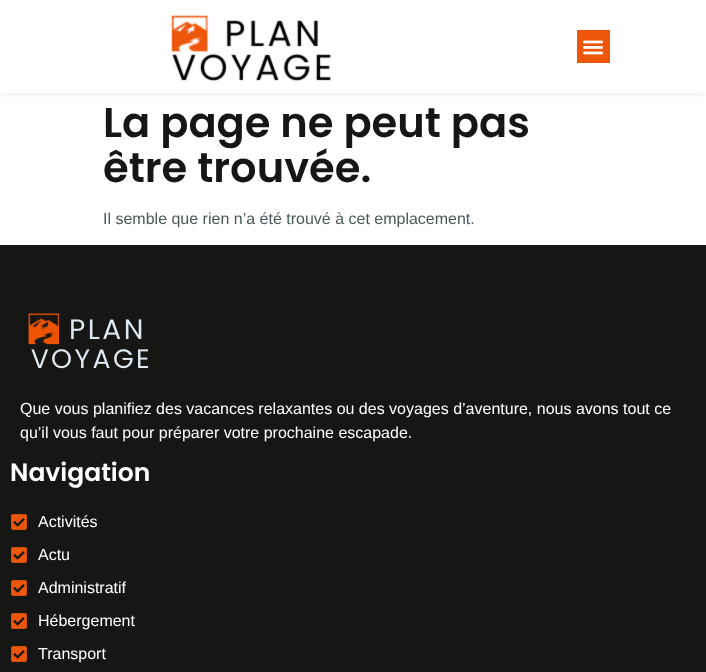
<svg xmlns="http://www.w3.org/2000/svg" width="706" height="672">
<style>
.a{font:600 41.6px Poppins;fill:#161614}
.b{font:16px Arimo;fill:#4a595a}
.c{font:16px Arimo;fill:#fff}
.d{font:600 25px Poppins;fill:#fff}
</style>
<defs>
<clipPath id="clip1"><path d="M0 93h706v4H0z"/></clipPath>
</defs>
<rect width="100%" height="100%" fill="#fff"/>
<g clip-path="url(#clip1)">
<path fill="#0000001a" filter="blur(5px)" d="M0 0h706v93H0z"/>
</g>
<image href="1.png" x="171" y="14" width="161" height="68"/>
<path fill="#ee560b" d="M577 30h33v33H577z"/>
<image href="2.png" x="582" y="40" width="22" height="15"/>
<path fill="#161614" d="M0 245h706v427H0z"/>
<image href="3.png" x="28" y="313" width="121" height="56"/>
<image href="4.png" x="11" y="514" width="16" height="16"/>
<image href="4.png" x="11" y="547" width="16" height="16"/>
<image href="4.png" x="11" y="580" width="16" height="16"/>
<image href="4.png" x="11" y="613" width="16" height="16"/>
<image href="4.png" x="11" y="646" width="16" height="16"/>
<text class="a" x="103" y="137">La page ne peut pas</text>
<text class="a" x="103" y="182">être trouvée.</text>
<text class="b" x="103" y="224">Il semble que rien n’a été trouvé à cet emplacement.</text>
<text class="c" x="20" y="414">Que vous planifiez des vacances relaxantes ou des voyages d’aventure, nous avons tout ce</text>
<text class="c" x="20" y="438">qu’il vous faut pour préparer votre prochaine escapade.</text>
<text class="d" x="10" y="481">Navigation</text>
<text class="c" x="38" y="527">Activités</text>
<text class="c" x="38" y="560">Actu</text>
<text class="c" x="38" y="593">Administratif</text>
<text class="c" x="38" y="626">Hébergement</text>
<text class="c" x="38" y="659">Transport</text>
</svg>
